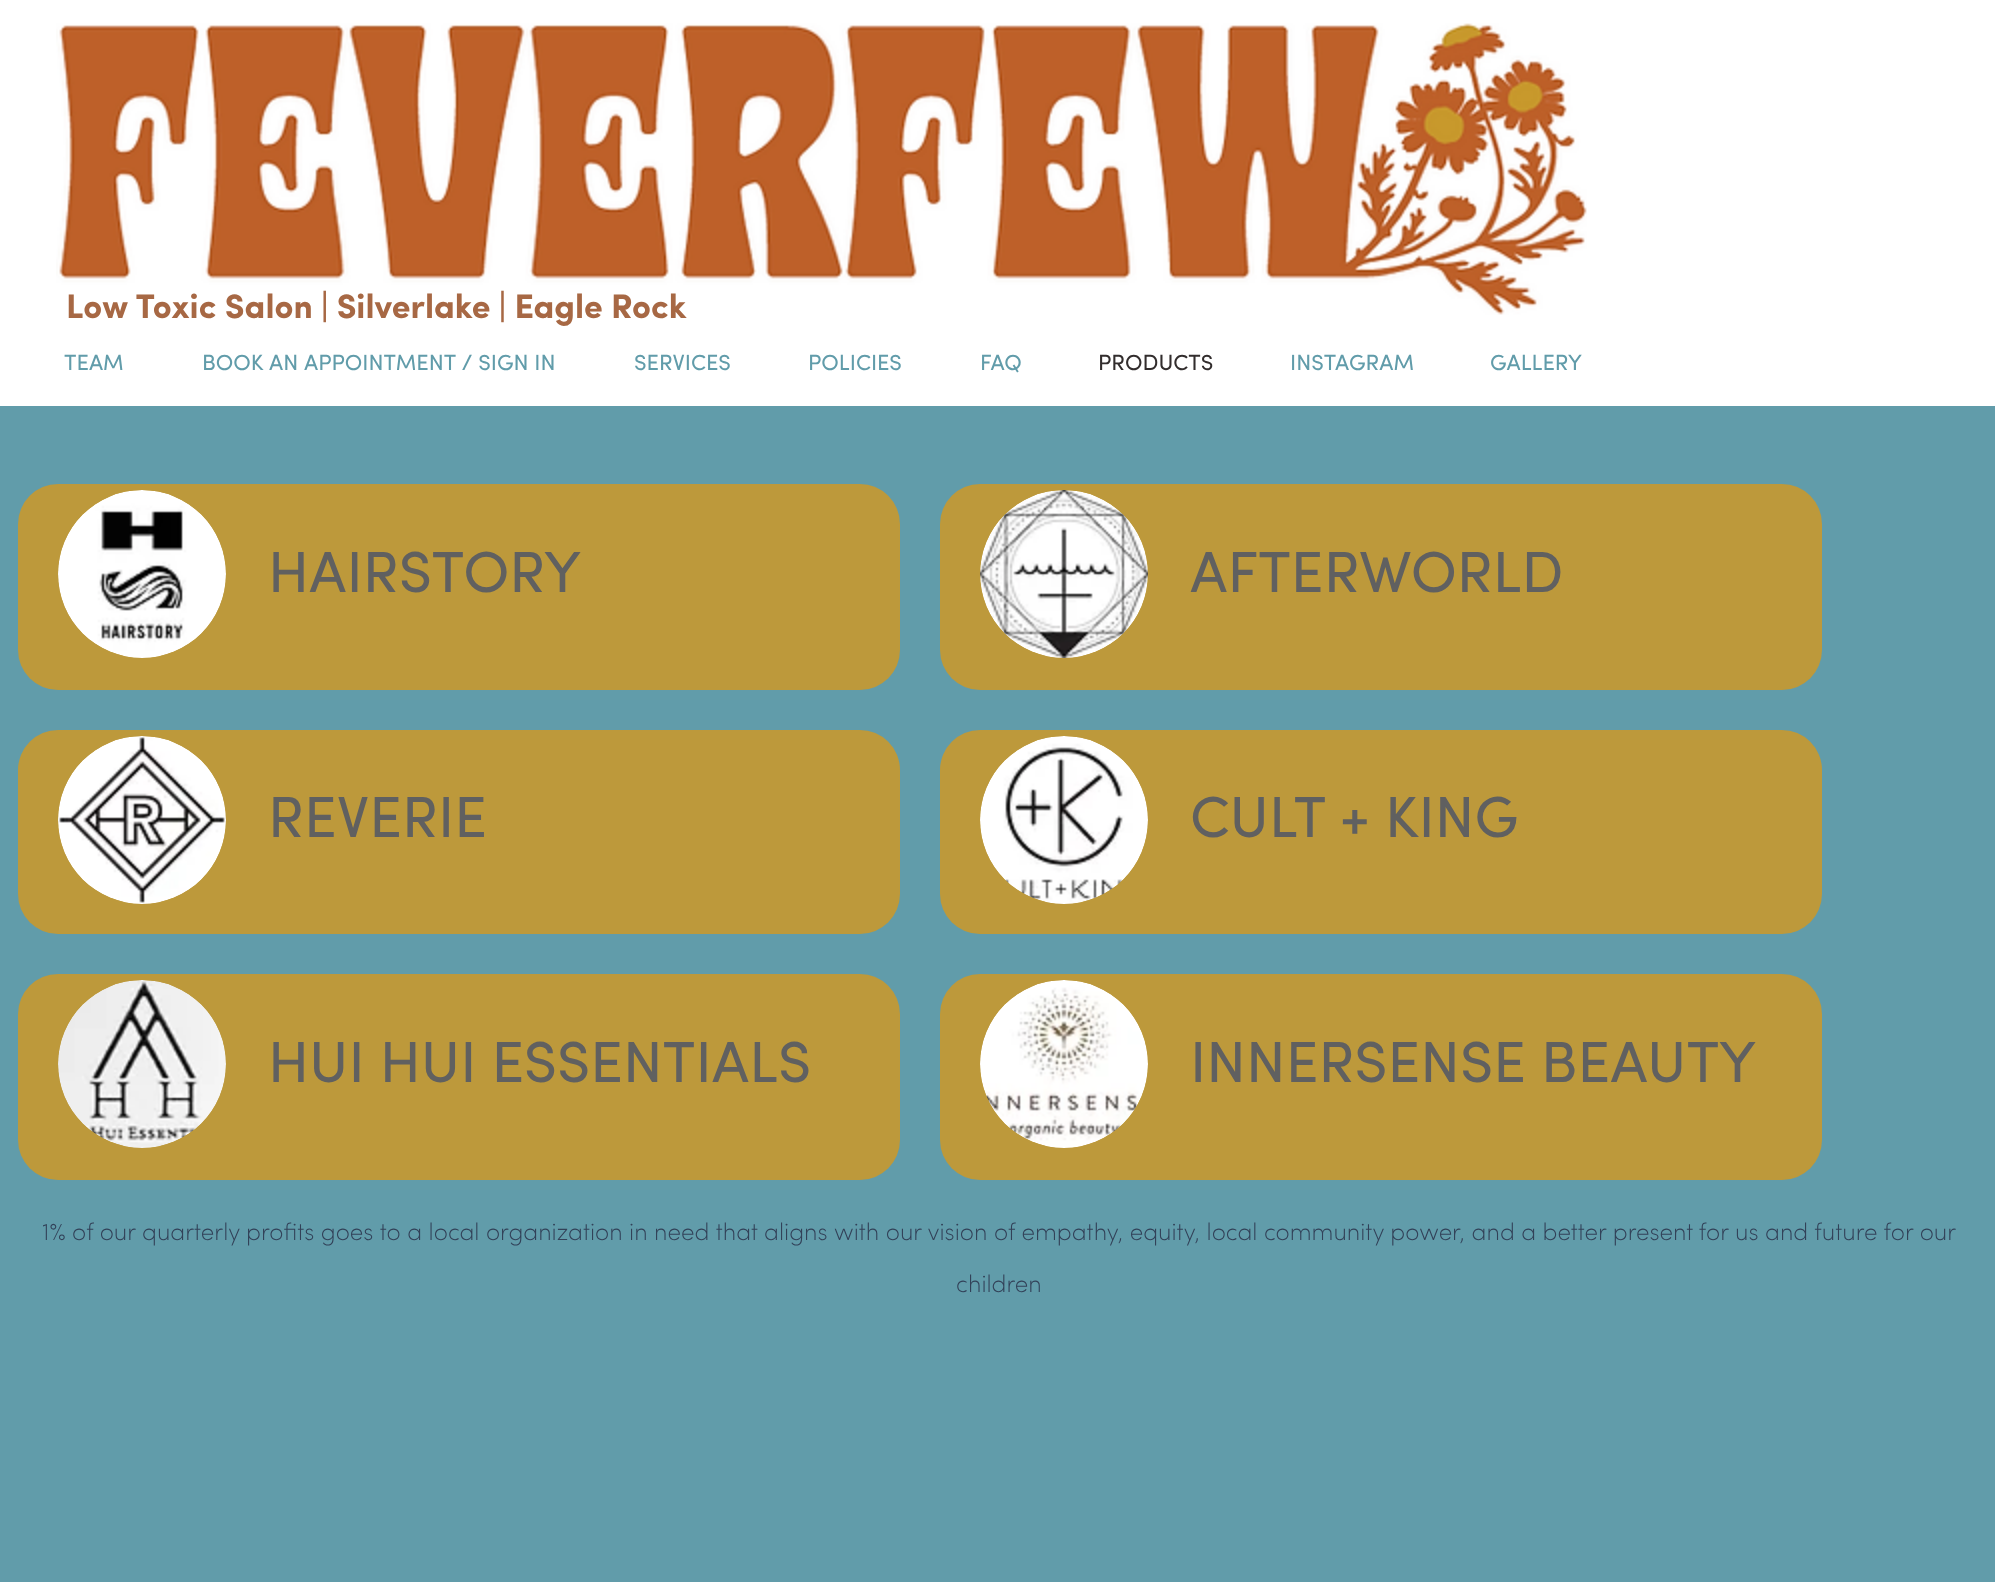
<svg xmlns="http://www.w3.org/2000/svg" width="1995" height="1582">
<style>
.a{font:bold 34px Sofia;fill:#a76844}
.b{font:22px Sofia;fill:#619caa}
.c{font:22px Sofia;fill:#322d2d}
.d{font:58px Sofia;fill:#606060}
.e{font:200 24px Sofia;fill:#324158}
</style>
<rect width="100%" height="100%" fill="#619caa"/>
<path fill="#fff" d="M0 0h1995v406H0z"/>
<image href="1.png" x="56" y="23" width="1531" height="292"/>
<rect fill="#bd993b" x="18" y="484" width="882" height="206" rx="40"/>
<image href="2.png" x="58" y="490" width="168" height="168"/>
<rect fill="#bd993b" x="18" y="730" width="882" height="204" rx="40"/>
<image href="3.png" x="58" y="736" width="168" height="168"/>
<rect fill="#bd993b" x="18" y="974" width="882" height="206" rx="40"/>
<image href="4.png" x="58" y="980" width="168" height="168"/>
<rect fill="#bd993b" x="940" y="484" width="882" height="206" rx="40"/>
<image href="5.png" x="980" y="490" width="168" height="168"/>
<rect fill="#bd993b" x="940" y="730" width="882" height="204" rx="40"/>
<image href="6.png" x="980" y="736" width="168" height="168"/>
<rect fill="#bd993b" x="940" y="974" width="882" height="206" rx="40"/>
<image href="7.png" x="980" y="980" width="168" height="168"/>
<text class="a" x="66" y="318">Low Toxic Salon | Silverlake | Eagle Rock</text>
<text class="b" x="64" y="370">TEAM</text>
<text class="b" x="202" y="370">BOOK AN APPOINTMENT / SIGN IN</text>
<text class="b" x="634" y="370">SERVICES</text>
<text class="b" x="808" y="370">POLICIES</text>
<text class="b" x="980" y="370">FAQ</text>
<text class="c" x="1098" y="370">PRODUCTS</text>
<text class="b" x="1290" y="370">INSTAGRAM</text>
<text class="b" x="1490" y="370">GALLERY</text>
<text class="d" x="268" y="592">HAIRSTORY</text>
<text class="d" x="268" y="837">REVERIE</text>
<text class="d" x="268" y="1082">HUI HUI ESSENTIALS</text>
<text class="d" x="1190" y="592">AFTERWORLD</text>
<text class="d" x="1190" y="837">CULT + KING</text>
<text class="d" x="1190" y="1082">INNERSENSE BEAUTY</text>
<text class="e" x="42" y="1240">1% of our quarterly profits goes to a local organization in need that aligns with our vision of empathy, equity, local community power, and a better present for us and future for our</text>
<text class="e" x="956" y="1292">children</text>
</svg>
